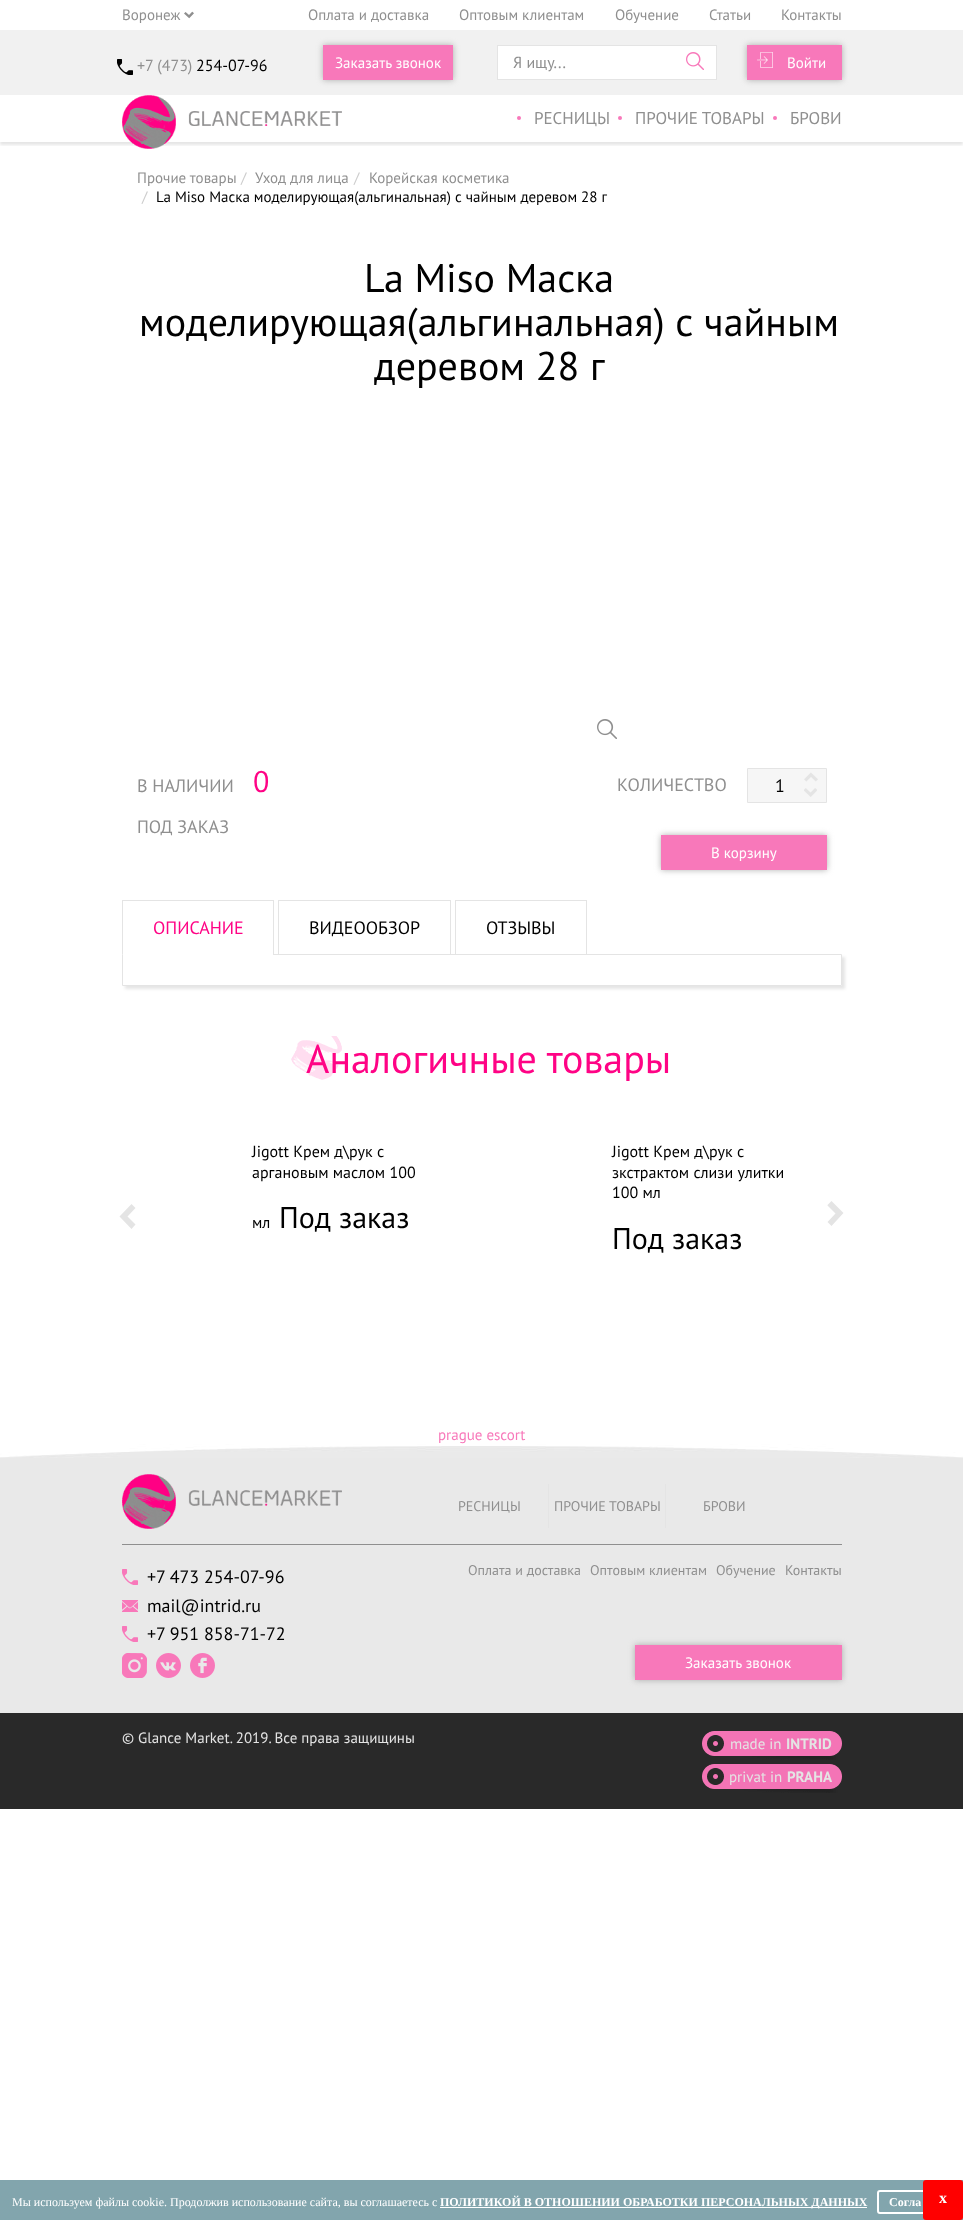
<svg xmlns="http://www.w3.org/2000/svg" width="963" height="2220">
<style>
.a{font:15px PT Sans;fill:#8f8f8f}
.b{font:10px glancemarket;fill:#8f8f8f}
.c{font:16px PT Sans;fill:#8f8f8f}
.d{font:16px PT Sans;fill:#000}
.e{font:15px PT Sans;fill:#fff}
.f{font:17px PT Sans;fill:#8f8f8f}
.g{font:15px PT Sans;fill:#ccc}
.h{font:15px PT Sans;fill:#000}
.i{font:40px PT Sans;fill:#000}
.j{font:18px PT Sans;fill:#8f8f8f}
.k{font:30px PT Sans;fill:#ff0385}
.l{font:18px PT Sans;fill:#000}
.m{font:18px PT Sans;fill:#ff0385}
.n{font:40px PT Sans;fill:#ff0385}
.o{font:30px PT Sans;fill:#000}
.p{font:15px PT Sans;fill:#f878ba}
.q{font:14px PT Sans;fill:#8f8f8f}
.r{font:15px PT Sans;fill:#e4e4e4}
.s{font:bold 15px PT Sans;fill:#e4e4e4}
.t{font:12px Liberation Serif;fill:#fff}
.u{font:bold 12px Liberation Serif;fill:#fff}
.v{font:bold 16px Liberation Serif;fill:#fff}
</style>
<defs>
<clipPath id="clip1"><path d="M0 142h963v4H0z"/></clipPath>
<clipPath id="clip2"><path d="M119 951h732v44h-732zm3 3h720v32h-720z" clip-rule="evenodd"/></clipPath>
</defs>
<rect width="100%" height="100%" fill="#fff"/>
<path fill="#f1f1f1" d="M0 30h963v65H0z"/>
<image href="1.png" x="117" y="59" width="16" height="16"/>
<path fill="#8f8f8fb3" filter="blur(3px)" d="M323 45h130v35H323z"/>
<path fill="#f878ba" d="M323 45h130v35H323z"/>
<path fill="#fff" d="M498 46h218v33H498z"/>
<path fill="#e4e4e4" d="M497 45h220v1H497z"/>
<path fill="#e4e4e4" d="M716 45h1v35H716z"/>
<path fill="#e4e4e4" d="M497 79h220v1H497z"/>
<image href="2.png" x="686" y="52" width="18" height="18"/>
<path fill="#e4e4e4" d="M497 45h1v35H497z"/>
<path fill="#8f8f8fb3" filter="blur(3px)" d="M747 45h95v35H747z"/>
<path fill="#f878ba" d="M747 45h95v35H747z"/>
<image href="3.png" x="757" y="52" width="16" height="16"/>
<g clip-path="url(#clip1)">
<path fill="#0000001a" filter="blur(1.5px)" d="M0 98h963v47H0z"/>
</g>
<image href="4.png" x="122" y="95" width="220" height="54"/>
<circle fill="#f878ba" cx="519" cy="118" r="2"/>
<circle fill="#f878ba" cx="620" cy="118" r="2"/>
<circle fill="#f878ba" cx="775" cy="118" r="2"/>
<image href="5.png" x="597" y="719" width="20" height="20"/>
<path fill="#f6f6f6" stroke="#e4e4e4" d="M747.5 768.5h79v34H747.5z"/>
<image href="6.png" x="804" y="772" width="14" height="10"/>
<image href="7.png" x="804" y="788" width="13" height="9"/>
<path fill="#8f8f8fb3" filter="blur(3px)" d="M661 835h166v35H661z"/>
<path fill="#f878ba" d="M661 835h166v35H661z"/>
<path fill="#e4e4e4" d="M122 900h152v1H122z"/>
<g clip-path="url(#clip2)">
<path fill="#0000001a" filter="blur(1.5px)" d="M125 957h720v32H125z"/>
</g>
<path fill="#e4e4e4" d="M273 900h1v54H273z"/>
<path fill="#e4e4e4" d="M122 900h1v54H122z"/>
<path fill="none" stroke="#e4e4e4" d="M122.5 954.5h719v31H122.5z"/>
<path fill="#fff" d="M123 954h150v1H123z"/>
<path fill="#e4e4e4" d="M278 900h173v1H278z"/>
<path fill="#e4e4e4" d="M450 900h1v54H450z"/>
<path fill="#e4e4e4" d="M278 900h1v54H278z"/>
<path fill="#e4e4e4" d="M455 900h132v1H455z"/>
<path fill="#e4e4e4" d="M586 900h1v54H586z"/>
<path fill="#e4e4e4" d="M455 900h1v54H455z"/>
<image href="8.png" x="291" y="1036" width="51" height="44"/>
<path fill="#e4e4e4" d="M135.5 1224.5l-8-8l8-8.5l-4-4l-12 12.5l12 12.5z"/>
<path fill="#e4e4e4" d="M827.5 1205.5l8 8l-8 8.5l4 4l12-13l-12-12l-4 4z"/>
<path fill="#e9e9e9" d="M0 1458h963v255H0z"/>
<image href="9.png" x="0" y="1444" width="963" height="14"/>
<image href="10.png" x="122" y="1474" width="220" height="55"/>
<path fill="#e4e4e4" d="M548 1484h1v44H548z"/>
<path fill="#e4e4e4" d="M665 1484h1v44H665z"/>
<path fill="#8f8f8f" d="M122 1544h720v1H122z"/>
<image href="11.png" x="122" y="1569" width="16" height="16"/>
<image href="12.png" x="122" y="1600" width="16" height="12"/>
<image href="11.png" x="122" y="1626" width="16" height="16"/>
<image href="13.png" x="122" y="1653" width="25" height="25"/>
<image href="14.png" x="156" y="1653" width="25" height="25"/>
<image href="15.png" x="190" y="1653" width="25" height="25"/>
<path fill="#8f8f8fb3" filter="blur(3px)" d="M635 1645h207v35H635z"/>
<path fill="#f878ba" d="M635 1645h207v35H635z"/>
<path fill="#292929" d="M0 1713h963v96H0z"/>
<image href="16.png" x="702" y="1731" width="140" height="29"/>
<image href="16.png" x="702" y="1764" width="140" height="29"/>
<path fill="#82a5ad" d="M0 2180h963v40H0z"/>
<path fill="#fff" d="M440 2207h427v1H440z"/>
<rect fill="none" stroke="#fff" stroke-width="2" x="878" y="2191" width="72" height="22" rx="2"/>
<rect fill="#f00" x="923" y="2180" width="40" height="40" rx="3"/>
<text class="a" x="122" y="20">Воронеж</text>
<text class="b" x="184" y="20">u</text>
<text class="a" x="308" y="20">Оплата и доставка</text>
<text class="a" x="459" y="20">Оптовым клиентам</text>
<text class="a" x="615" y="20">Обучение</text>
<text class="a" x="709" y="20">Статьи</text>
<text class="a" x="781" y="20">Контакты</text>
<text class="c" x="137" y="71">+7 (473)</text>
<text class="d" x="196" y="71">254-07-96</text>
<text class="e" x="335" y="68">Заказать звонок</text>
<text class="c" x="513" y="68">Я ищу...</text>
<text class="e" x="787" y="68">Войти</text>
<text class="f" x="534" y="124">РЕСНИЦЫ</text>
<text class="f" x="635" y="124">ПРОЧИЕ ТОВАРЫ</text>
<text class="f" x="790" y="124">БРОВИ</text>
<text class="a" x="137" y="183">Прочие товары</text>
<text class="g" x="241" y="183">/</text>
<text class="a" x="255" y="183">Уход для лица</text>
<text class="g" x="354" y="183">/</text>
<text class="a" x="369" y="183">Корейская косметика</text>
<text class="g" x="142" y="202">/</text>
<text class="h" x="156" y="202">La Miso Маска моделирующая(альгинальная) с чайным деревом 28 г</text>
<text class="i" x="364" y="292">La Miso Маска</text>
<text class="i" x="139" y="336">моделирующая(альгинальная) с чайным</text>
<text class="i" x="374" y="380">деревом 28 г</text>
<text class="j" x="137" y="792">В НАЛИЧИИ</text>
<text class="k" x="253" y="792">0</text>
<text class="j" x="617" y="791">КОЛИЧЕСТВО</text>
<text class="l" x="775" y="792">1</text>
<text class="j" x="137" y="833">ПОД ЗАКАЗ</text>
<text class="e" x="711" y="858">В корзину</text>
<text class="m" x="153" y="934">ОПИСАНИЕ</text>
<text class="l" x="309" y="934">ВИДЕООБЗОР</text>
<text class="l" x="486" y="934">ОТЗЫВЫ</text>
<text class="n" x="306" y="1073">Аналогичные товары</text>
<text class="d" x="252" y="1157">Jigott Крем д\рук с</text>
<text class="d" x="252" y="1178">аргановым маслом 100</text>
<text class="d" x="252" y="1228">мл</text>
<text class="o" x="279" y="1228">Под заказ</text>
<text class="d" x="612" y="1157">Jigott Крем д\рук с</text>
<text class="d" x="612" y="1178">зкстрактом слизи улитки</text>
<text class="d" x="612" y="1198">100 мл</text>
<text class="o" x="612" y="1249">Под заказ</text>
<text class="p" x="438" y="1440">prague escort</text>
<text class="q" x="458" y="1511">РЕСНИЦЫ</text>
<text class="q" x="554" y="1511">ПРОЧИЕ ТОВАРЫ</text>
<text class="q" x="703" y="1511">БРОВИ</text>
<text class="l" x="147" y="1583">+7 473 254-07-96</text>
<text class="l" x="147" y="1612">mail@intrid.ru</text>
<text class="l" x="147" y="1640">+7 951 858-71-72</text>
<text class="q" x="468" y="1575">Оплата и доставка</text>
<text class="q" x="590" y="1575">Оптовым клиентам</text>
<text class="q" x="716" y="1575">Обучение</text>
<text class="q" x="785" y="1575">Контакты</text>
<text class="e" x="685" y="1668">Заказать звонок</text>
<text class="r" x="122" y="1743">© Glance Market. 2019. Все права защищины</text>
<text class="r" x="730" y="1749">made in</text>
<text class="s" x="786" y="1749">INTRID</text>
<text class="r" x="729" y="1782">privat in</text>
<text class="s" x="787" y="1782">PRAHA</text>
<text class="t" x="12" y="2206">Мы используем файлы cookie. Продолжив использование сайта, вы соглашаетесь с</text>
<text class="u" x="440" y="2206">ПОЛИТИКОЙ В ОТНОШЕНИИ ОБРАБОТКИ ПЕРСОНАЛЬНЫХ ДАННЫХ</text>
<text class="u" x="889" y="2206">Согла</text>
<text class="v" x="939" y="2203">x</text>
</svg>
